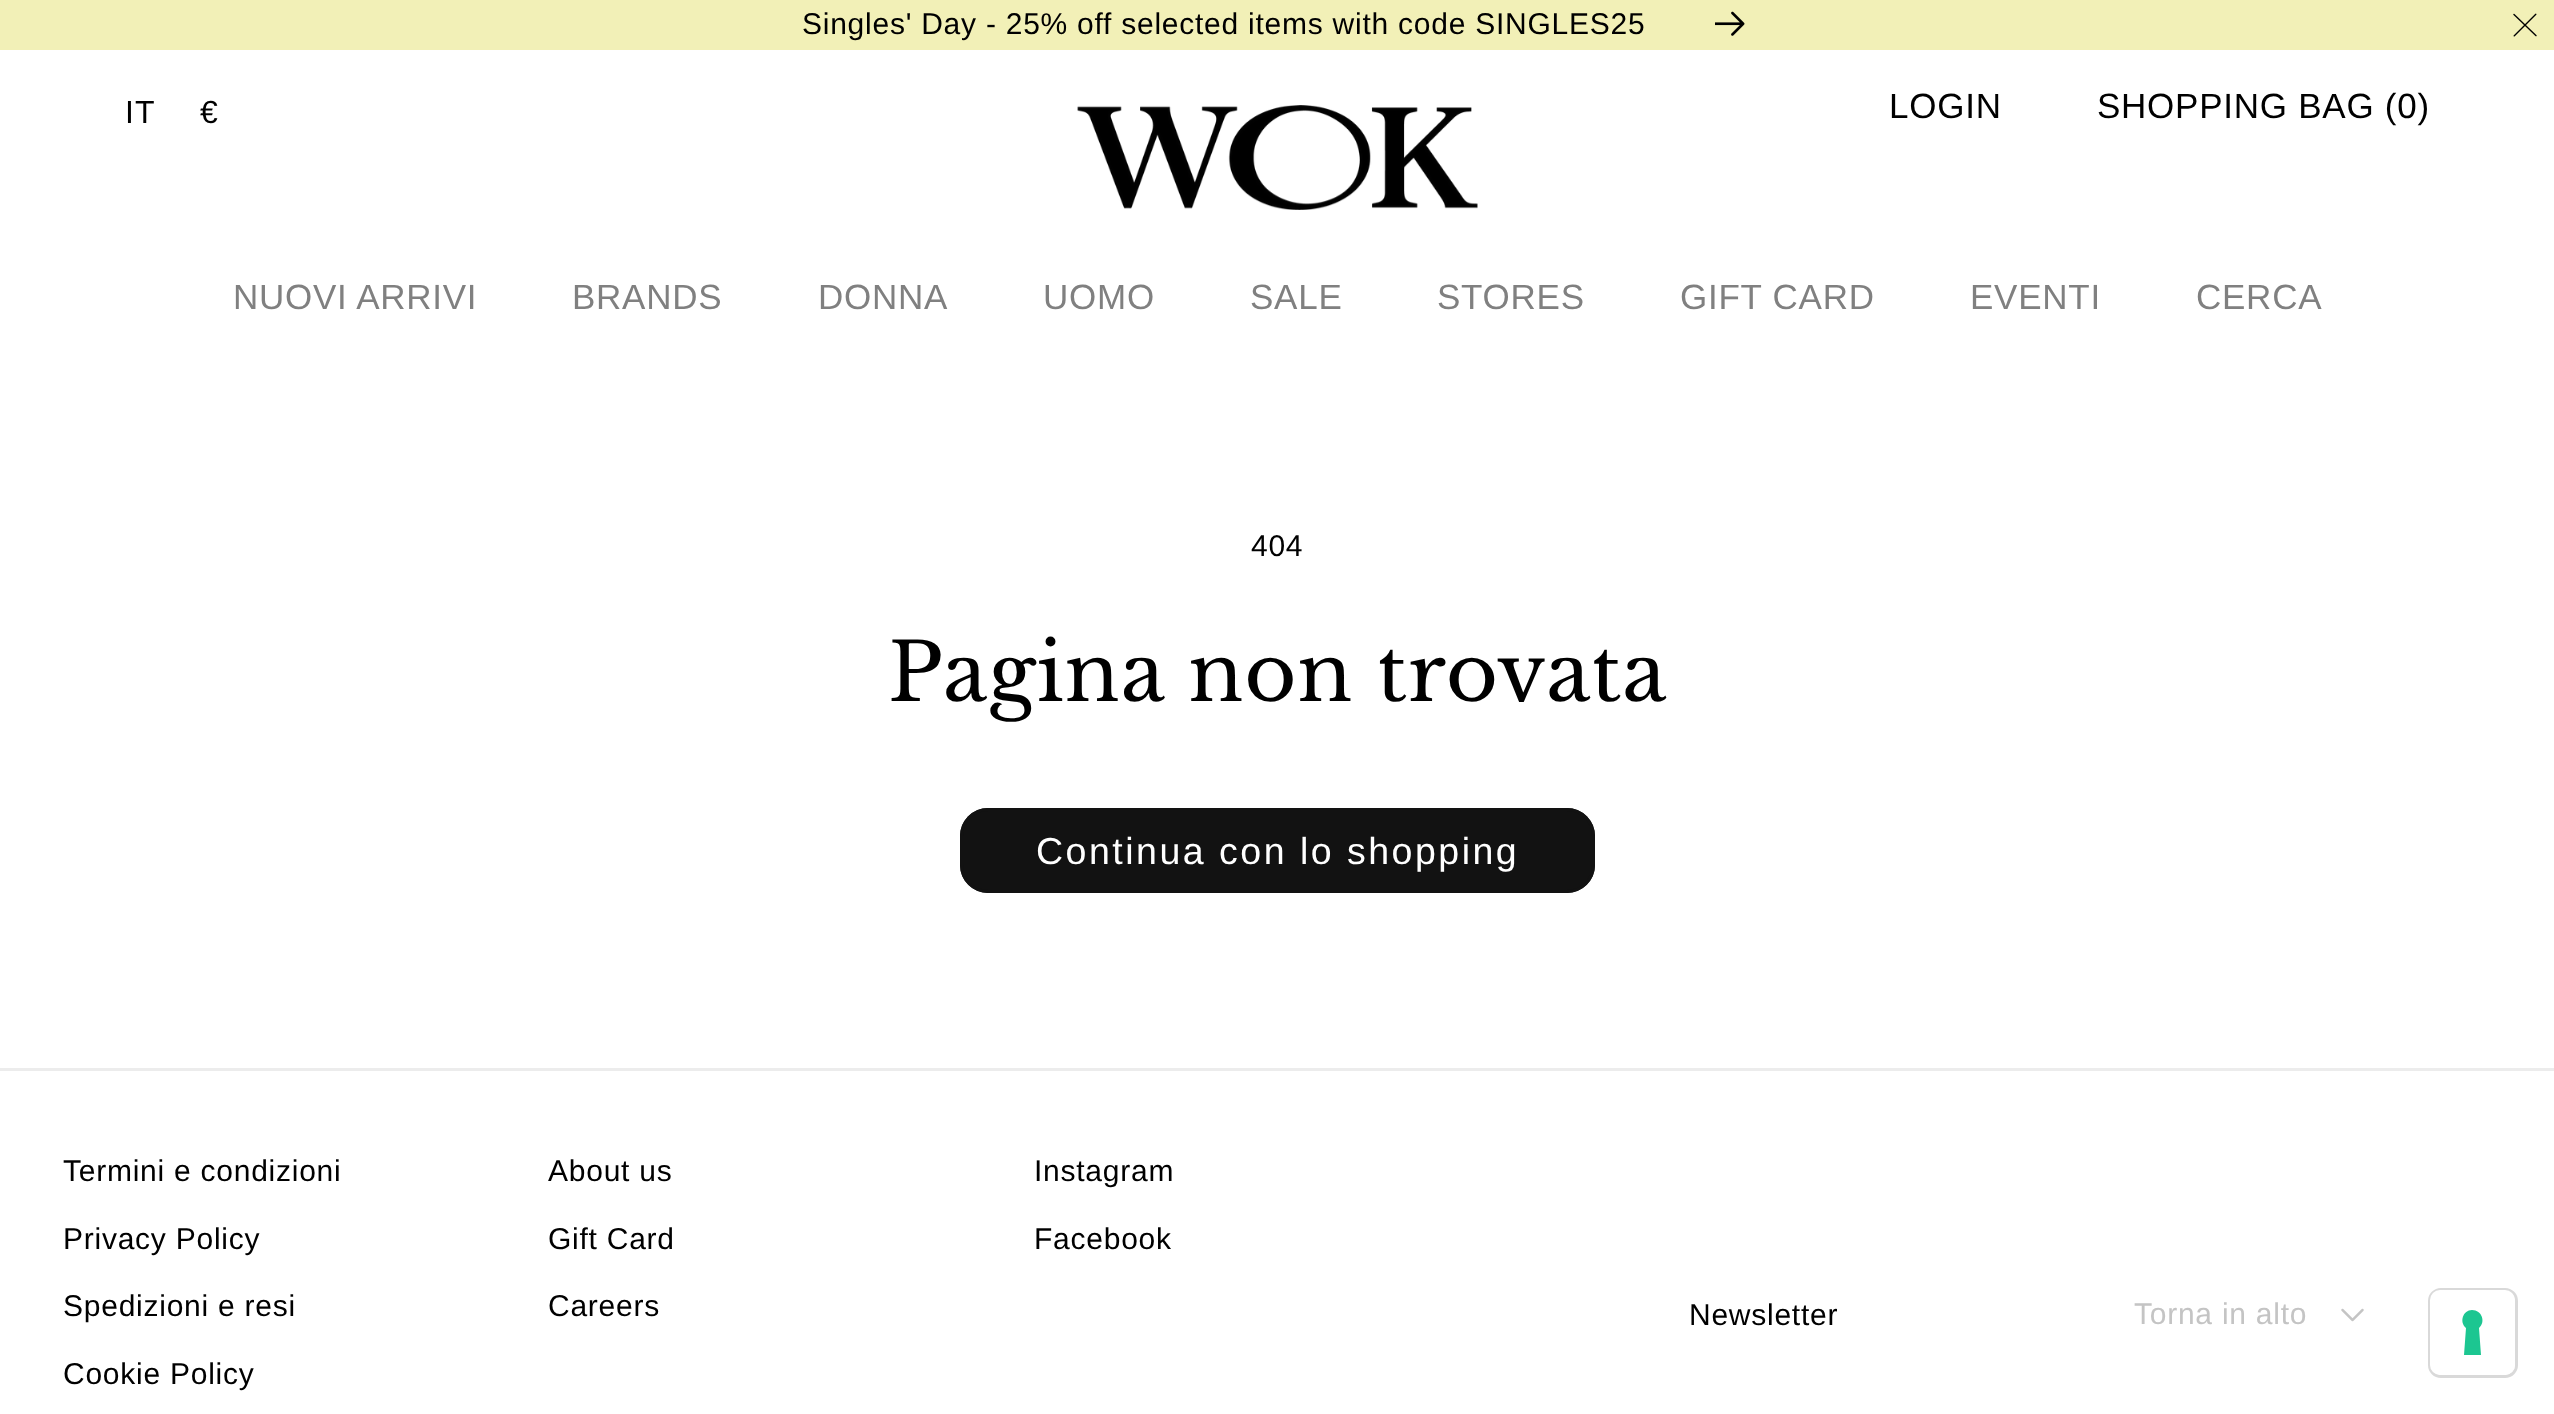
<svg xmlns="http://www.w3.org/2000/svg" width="2554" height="1414">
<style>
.a{font:30px Liberation Sans;letter-spacing:0.75px;fill:#000}
.b{font:32px Liberation Sans;letter-spacing:1px;fill:#000}
.c{font:35px Liberation Sans;letter-spacing:0.75px;fill:#000}
.d{font:35px Liberation Sans;letter-spacing:0.75px;fill:#808080}
.e{font:80px Libre Baskerville;letter-spacing:0.75px;fill:#000}
.f{font:37.5px Liberation Sans;letter-spacing:2.5px;fill:#fff}
.g{font:30px Liberation Sans;letter-spacing:0.75px;fill:#c4c4c4}
</style>
<rect width="100%" height="100%" fill="#fff"/>
<path fill="#f2f0b7" d="M0 0h2554v50H0z"/>
<image href="1.png" x="1715" y="11" width="30" height="25"/>
<image href="2.png" x="2513" y="13" width="24" height="24"/>
<image href="3.png" x="1077" y="105" width="401" height="105"/>
<rect fill="#121212" x="960" y="808" width="635" height="85" rx="28"/>
<rect fill="none" stroke="#121212" stroke-width="3" x="961.5" y="809.5" width="632" height="82" rx="26.5"/>
<path fill="#ececec" d="M0 1068h2554v3H0z"/>
<image href="4.png" x="2341" y="1308" width="23" height="14"/>
<rect fill="none" stroke="#d9d9d9" stroke-width="3" x="2429.5" y="1289.5" width="87" height="87" rx="11.5"/>
<rect fill="#fff" x="2430" y="1290" width="85" height="85" rx="10"/>
<path fill="#1cc691" fill-rule="evenodd" d="M2472 1310c10 0 14 12 7 18l2 27h-17l2-27c-7-6-3-18 6-18z"/>
<text class="a" x="802" y="34">Singles' Day - 25% off selected items with code SINGLES25</text>
<text class="b" x="125" y="123">IT</text>
<text class="b" x="200" y="123">€</text>
<text class="c" x="1889" y="118">LOGIN</text>
<text class="c" x="2097" y="118">SHOPPING BAG (0)</text>
<text class="d" x="233" y="309">NUOVI ARRIVI</text>
<text class="d" x="572" y="309">BRANDS</text>
<text class="d" x="818" y="309">DONNA</text>
<text class="d" x="1043" y="309">UOMO</text>
<text class="d" x="1250" y="309">SALE</text>
<text class="d" x="1437" y="309">STORES</text>
<text class="d" x="1680" y="309">GIFT CARD</text>
<text class="d" x="1970" y="309">EVENTI</text>
<text class="d" x="2196" y="309">CERCA</text>
<text class="a" x="1251" y="556">404</text>
<text class="e" x="888" y="701">Pagina non trovata</text>
<text class="f" x="1036" y="864">Continua con lo shopping</text>
<text class="a" x="63" y="1181">Termini e condizioni</text>
<text class="a" x="63" y="1249">Privacy Policy</text>
<text class="a" x="63" y="1316">Spedizioni e resi</text>
<text class="a" x="63" y="1384">Cookie Policy</text>
<text class="a" x="548" y="1181">About us</text>
<text class="a" x="548" y="1249">Gift Card</text>
<text class="a" x="548" y="1316">Careers</text>
<text class="a" x="1034" y="1181">Instagram</text>
<text class="a" x="1034" y="1249">Facebook</text>
<text class="a" x="1689" y="1325">Newsletter</text>
<text class="g" x="2134" y="1324">Torna in alto</text>
</svg>
